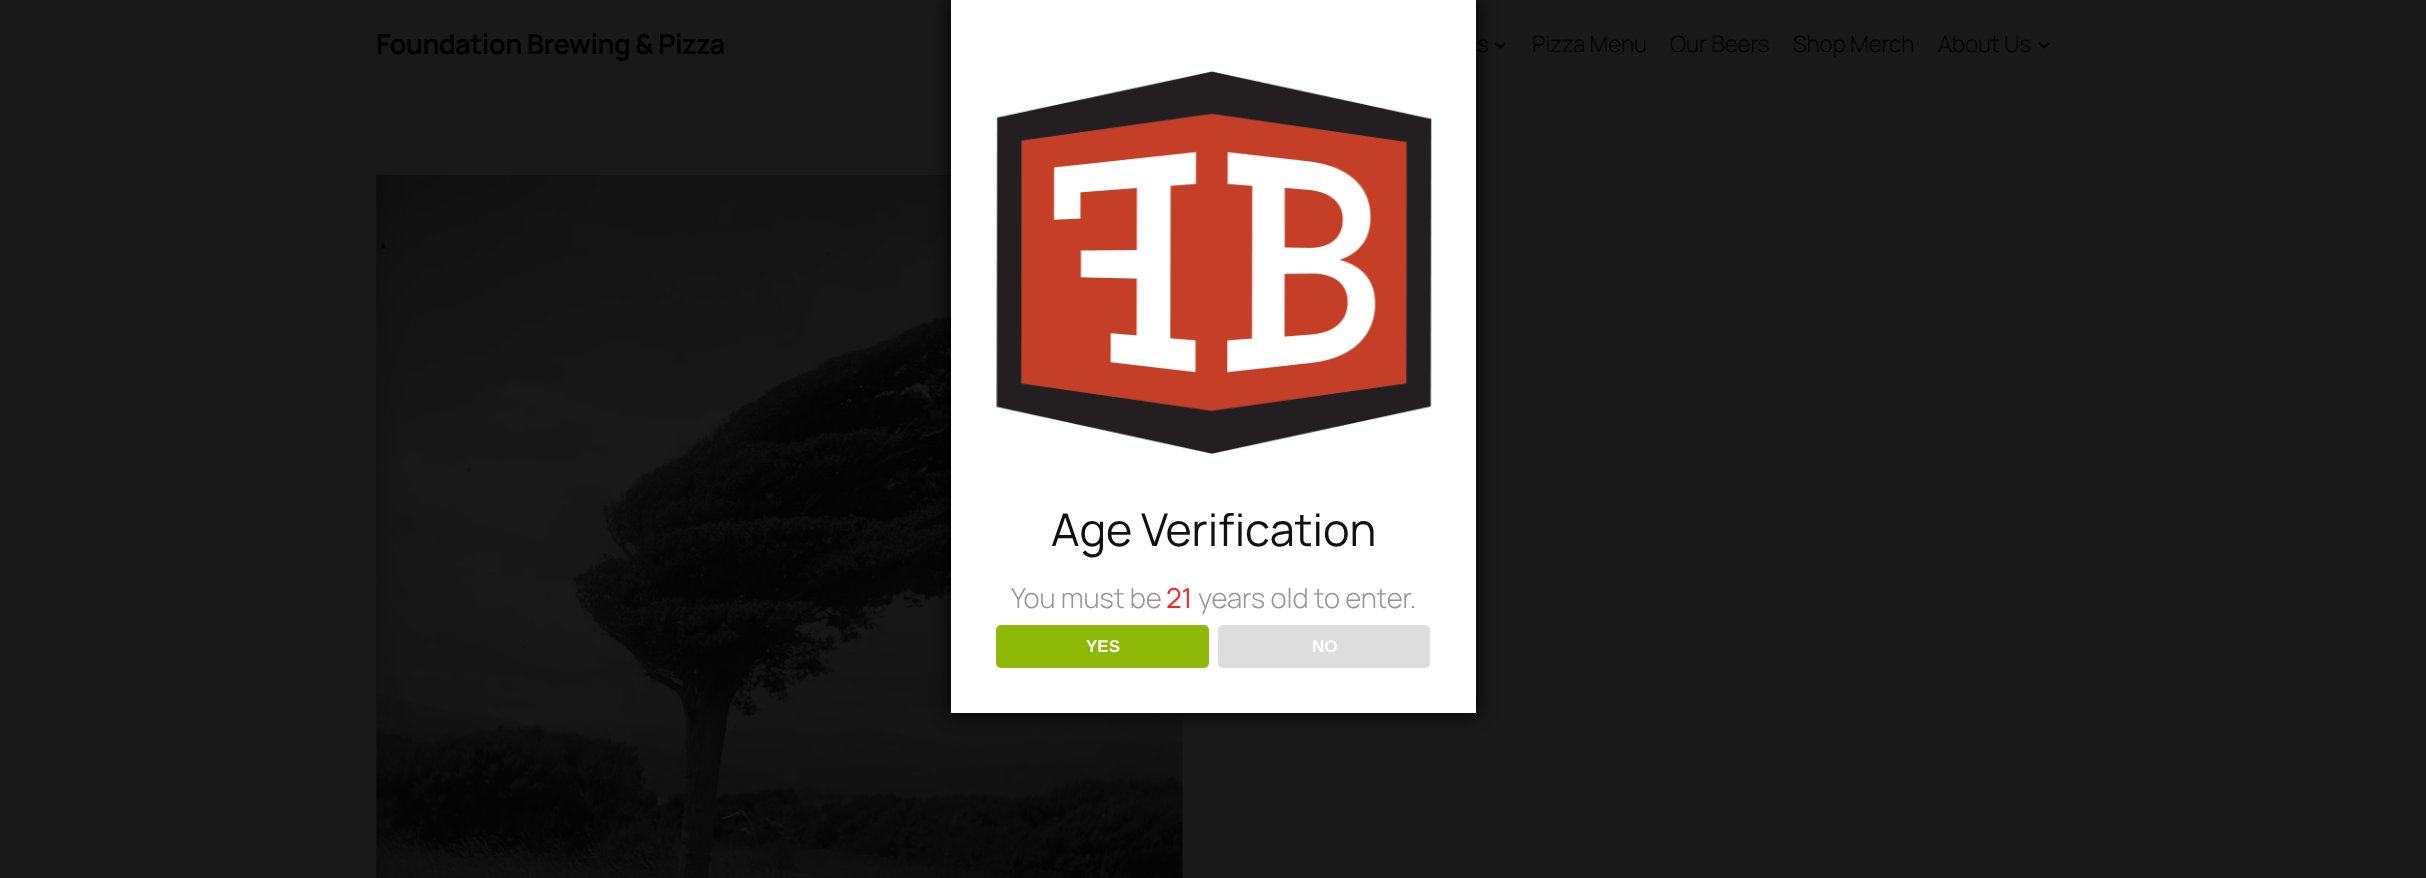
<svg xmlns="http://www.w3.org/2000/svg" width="2426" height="878">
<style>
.a{font:bold 27.5px Manrope;letter-spacing:-0.6px;fill:#020202}
.b{font:300 22.5px Manrope;letter-spacing:-0.1px;fill:#020202}
.c{font:45px Manrope;letter-spacing:-0.1px;fill:#111}
.d{font:300 27.5px Manrope;letter-spacing:-0.1px;fill:#959595}
.e{font:27.5px Manrope;letter-spacing:-0.1px;fill:#ff1f1f}
.f{font:bold 17px Liberation Sans;fill:#fff}
</style>
<rect width="100%" height="100%" fill="#191919"/>
<path fill="none" stroke="#020202" stroke-width="1.7" d="M1495.5 43l5 4.5l5-4.5"/>
<path fill="none" stroke="#020202" stroke-width="1.7" d="M2039 43l5 4.5l5.5-4.5"/>
<image href="1.png" x="376" y="175" width="807" height="703"/>
<path fill="#000" filter="blur(9.5px)" d="M951 0h525v713H951z"/>
<path fill="#fff" d="M951 0h525v713H951z"/>
<image href="2.png" x="996" y="71" width="436" height="383"/>
<rect fill="#8eb908" x="996" y="625" width="213" height="43" rx="5"/>
<rect fill="#ddd" x="1218" y="625" width="212" height="43" rx="5"/>
<text class="a" x="376" y="54">Foundation Brewing &amp; Pizza</text>
<text class="b" x="1477" y="52">s</text>
<text class="b" x="1532" y="52">Pizza Menu</text>
<text class="b" x="1670" y="52">Our Beers</text>
<text class="b" x="1793" y="52">Shop Merch</text>
<text class="b" x="1938" y="52">About Us</text>
<text class="c" x="1051" y="546">Age Verification</text>
<text class="d" x="1011" y="608">You must be</text>
<text class="e" x="1166" y="608">21</text>
<text class="d" x="1198" y="608">years old to enter.</text>
<text class="f" x="1086" y="652">YES</text>
<text class="f" x="1312" y="652">NO</text>
</svg>
